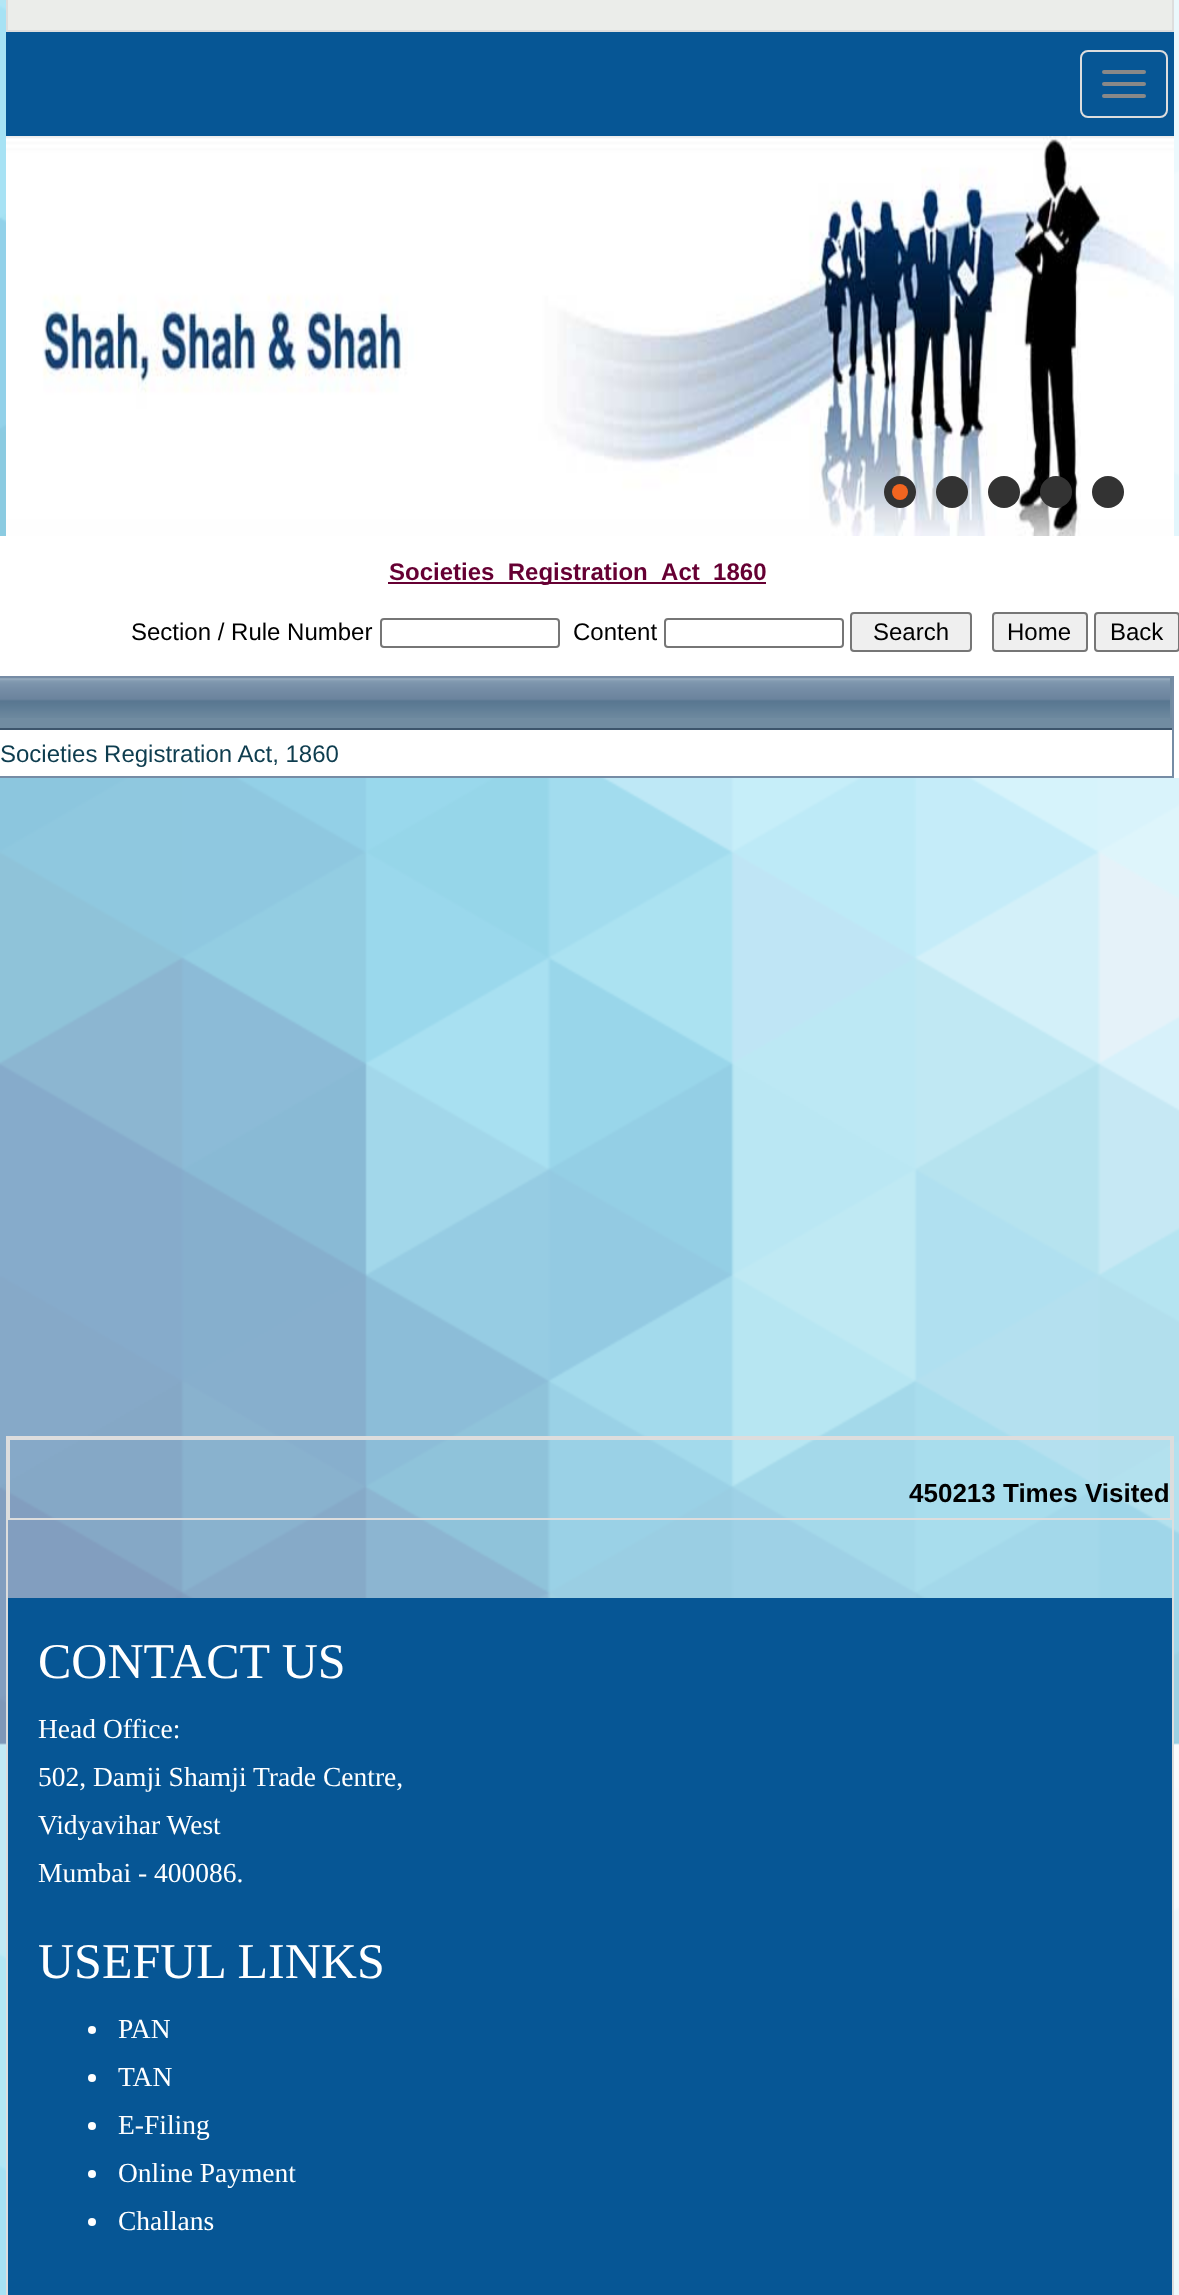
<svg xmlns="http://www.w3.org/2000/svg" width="1179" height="2295">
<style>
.a{font:bold 24px Liberation Sans;fill:#603}
.b{font:24px Liberation Sans;fill:#000}
.c{font:24px Liberation Sans;fill:#0e3d4f}
.d{font:bold 26px Liberation Sans;fill:#000}
.e{font:50px Liberation Serif;fill:#fff}
.f{font:27.5px Liberation Serif;fill:#fff}
</style>
<rect width="100%" height="100%" fill="#fff"/>
<image href="1.png" x="0" y="0" width="1179" height="2295"/>
<path fill="#ddd" d="M1172 0h2v32H1172z"/>
<path fill="#ddd" d="M6 30h1168v2H6z"/>
<path fill="#ddd" d="M6 0h2v32H6z"/>
<path fill="#ebedea" d="M8 0h1164v30H8z"/>
<path fill="#065695" d="M6 32h1168v104H6z"/>
<rect fill="none" stroke="#ddd" stroke-width="2" x="1081" y="51" width="86" height="66" rx="7"/>
<rect fill="#888" x="1102" y="70" width="44" height="4" rx="2"/>
<rect fill="#888" x="1102" y="82" width="44" height="4" rx="2"/>
<rect fill="#888" x="1102" y="94" width="44" height="4" rx="2"/>
<image href="2.png" x="6" y="136" width="1168" height="400"/>
<circle fill="#333" cx="900" cy="492" r="16"/>
<circle fill="#f26520" cx="900" cy="492" r="8"/>
<circle fill="#333" cx="952" cy="492" r="16"/>
<circle fill="#333" cx="1004" cy="492" r="16"/>
<circle fill="#333" cx="1056" cy="492" r="16"/>
<circle fill="#333" cx="1108" cy="492" r="16"/>
<path fill="#fff" d="M0 536h1179v242H0z"/>
<path fill="#603" d="M388 582h378v2H388z"/>
<rect fill="none" stroke="#767676" stroke-width="2" x="381" y="619" width="178" height="28" rx="3"/>
<rect fill="none" stroke="#767676" stroke-width="2" x="665" y="619" width="178" height="28" rx="3"/>
<rect fill="#efefef" stroke="#767676" stroke-width="2" x="851" y="613" width="120" height="38" rx="3"/>
<rect fill="#efefef" stroke="#767676" stroke-width="2" x="993" y="613" width="94" height="38" rx="3"/>
<rect fill="#efefef" stroke="#767676" stroke-width="2" x="1095" y="613" width="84" height="38" rx="3"/>
<path fill="none" stroke="#768ca5" stroke-width="2" d="M-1 677h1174v100H-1z"/>
<path fill="#718ca1" d="M0 678h1170v50H0z"/>
<image href="3.png" x="0" y="678" width="1170" height="40"/>
<path fill="#728ba1" d="M1170 678h2v52H1170z"/>
<path fill="#3d556c" d="M0 728h1172v2H0z"/>
<path fill="#ddd" d="M6 1436h1168v2H6z"/>
<path fill="#ddd" d="M1172 1436h2v859H1172z"/>
<path fill="#ddd" d="M6 1436h2v859H6z"/>
<path fill="#ddd" d="M8 1438h1164v2H8z"/>
<path fill="#ddd" d="M1170 1438h2v82H1170z"/>
<path fill="#ddd" d="M8 1518h1164v2H8z"/>
<path fill="#ddd" d="M8 1438h2v82H8z"/>
<path fill="#065695" d="M8 1598h1164v697H8z"/>
<circle fill="#fff" cx="92" cy="2030" r="4"/>
<circle fill="#fff" cx="92" cy="2078" r="4"/>
<circle fill="#fff" cx="92" cy="2126" r="4"/>
<circle fill="#fff" cx="92" cy="2174" r="4"/>
<circle fill="#fff" cx="92" cy="2222" r="4"/>
<text class="a" x="389" y="580">Societies_Registration_Act_1860</text>
<text class="b" x="131" y="640">Section / Rule Number</text>
<text class="b" x="573" y="640">Content</text>
<text class="b" x="873" y="640">Search</text>
<text class="b" x="1007" y="640">Home</text>
<text class="b" x="1110" y="640">Back</text>
<text class="c" x="0" y="762">Societies Registration Act, 1860</text>
<text class="d" x="909" y="1502">450213 Times Visited</text>
<text class="e" x="38" y="1678">CONTACT US</text>
<text class="f" x="38" y="1738">Head Office:</text>
<text class="f" x="38" y="1786">502, Damji Shamji Trade Centre,</text>
<text class="f" x="38" y="1834">Vidyavihar West</text>
<text class="f" x="38" y="1882">Mumbai - 400086.</text>
<text class="e" x="38" y="1978">USEFUL LINKS</text>
<text class="f" x="118" y="2038">PAN</text>
<text class="f" x="118" y="2086">TAN</text>
<text class="f" x="118" y="2134">E-Filing</text>
<text class="f" x="118" y="2182">Online Payment</text>
<text class="f" x="118" y="2230">Challans</text>
</svg>
